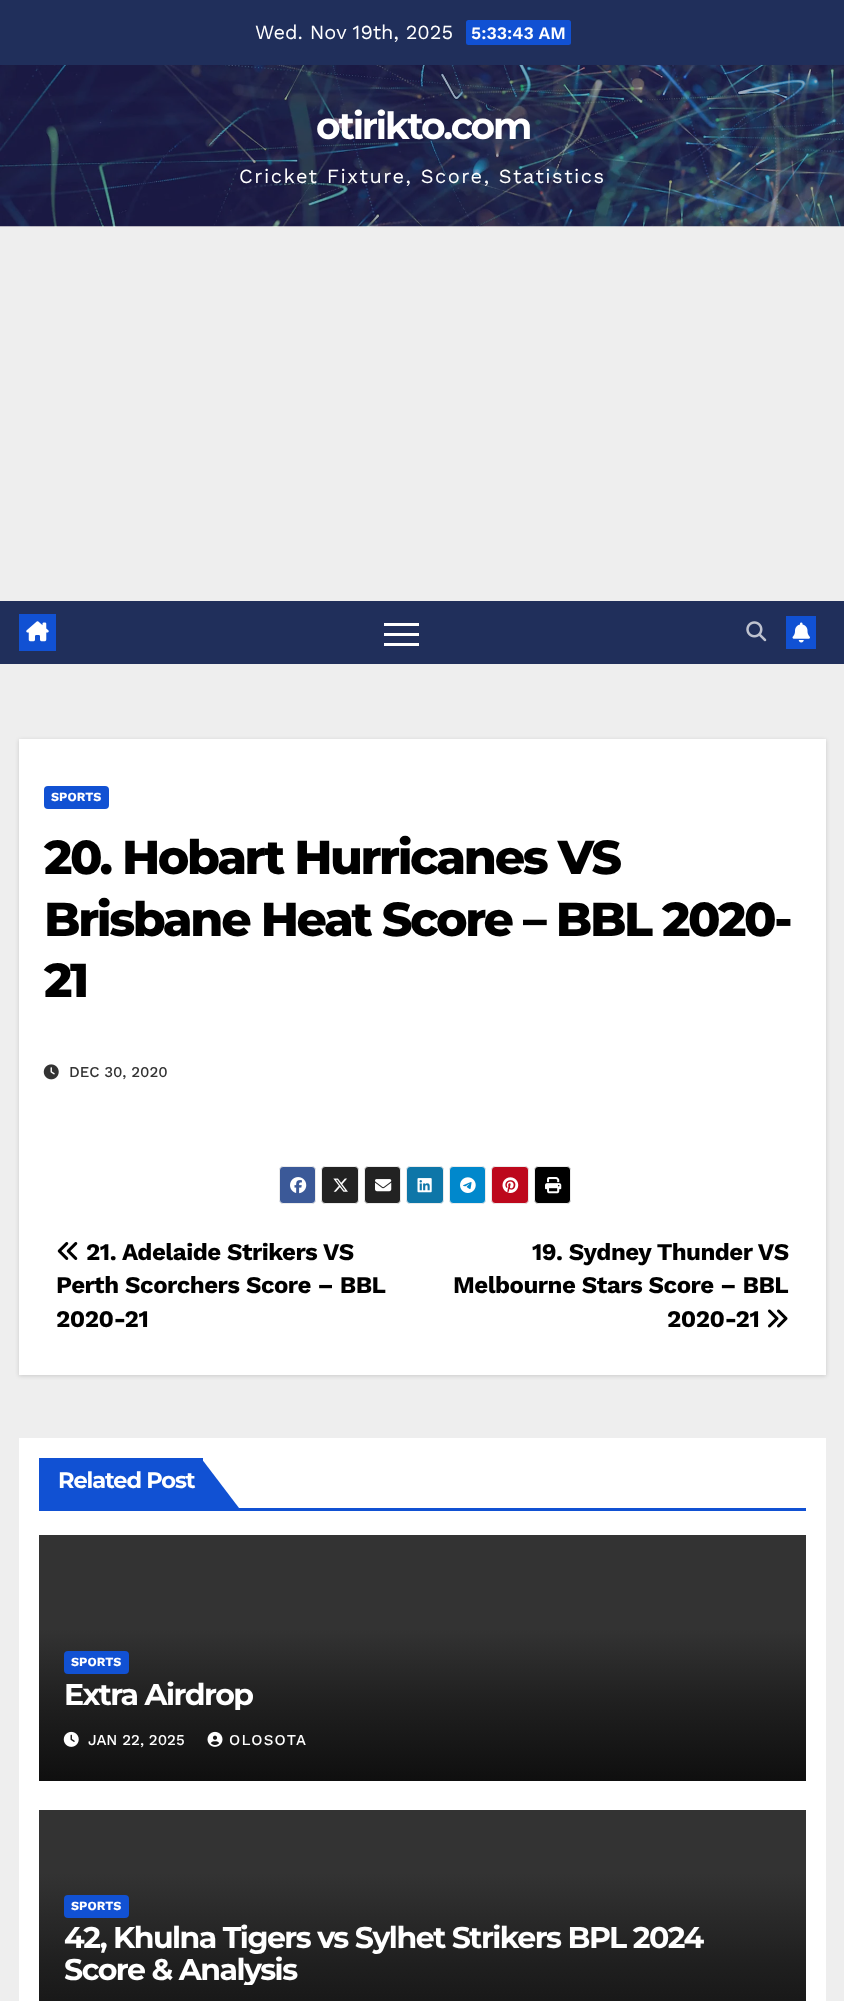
<svg xmlns="http://www.w3.org/2000/svg" width="844" height="2001">
<style>
.a{font:20px Work Sans;fill:#fff}
.b{font:600 17.5px Work Sans;fill:#fff}
.c{font:bold 37.5px Montserrat;letter-spacing:-2.1px;fill:#fff}
.d{font:20px Work Sans;letter-spacing:1.5px;fill:#fff}
.e{font:bold 12.5px Work Sans;fill:#fff}
.f{font:800 47.5px Montserrat;letter-spacing:-2.4px;fill:#000}
.g{font:500 15px Work Sans;fill:#333}
.h{font:bold 24px Work Sans;letter-spacing:-0.5px;fill:#000}
.i{font:bold 22.5px Montserrat;letter-spacing:-1.1px;fill:#fff}
.j{font:bold 30px Montserrat;letter-spacing:-1.5px;fill:#fff}
.k{font:500 15px Work Sans;fill:#fff}
.l{font:500 15px Work Sans;letter-spacing:1.25px;fill:#fff}
</style>
<defs>
<linearGradient id="g1" gradientUnits="userSpaceOnUse" x1="423" y1="1629" x2="423" y2="1781"><stop offset="0" stop-color="#333"/><stop offset="0.5" stop-color="#1f1f1f"/><stop offset="1" stop-color="#0f0f0f"/></linearGradient>
<linearGradient id="g2" gradientUnits="userSpaceOnUse" x1="423" y1="1873" x2="423" y2="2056"><stop offset="0" stop-color="#333"/><stop offset="0.5" stop-color="#1f1f1f"/><stop offset="1" stop-color="#0f0f0f"/></linearGradient>
<clipPath id="clip1"><path d="M64 1679h717v31H64z"/></clipPath>
<clipPath id="clip2"><path d="M64 1923h717v62H64z"/></clipPath>
</defs>
<rect width="100%" height="100%" fill="#eee"/>
<path fill="#202f5b" d="M0 0h844v65H0z"/>
<rect fill="#1151d3" x="466" y="20" width="105" height="25" rx="2.5"/>
<image href="1.png" x="0" y="65" width="844" height="162"/>
<path fill="#202f5b" d="M0 601h844v63H0z"/>
<path fill="#1151d3" d="M19 614h37v37H19z"/>
<image href="2.png" x="26" y="621" width="23" height="21"/>
<path fill="#fff" d="M384 623h35v3H384z"/>
<path fill="#fff" d="M384 633h35v3H384z"/>
<path fill="#fff" d="M384 643h35v3H384z"/>
<image href="3.png" x="746" y="621" width="21" height="21"/>
<path fill="#1151d3" d="M786 616h30v33H786z"/>
<image href="4.png" x="792" y="622" width="18" height="21"/>
<path fill="#00000026" filter="blur(2px)" d="M19 740h807v636H19z"/>
<path fill="#fff" d="M19 739h807v636H19z"/>
<rect fill="#1151d3" x="44" y="786" width="65" height="23" rx="4"/>
<image href="5.png" x="43" y="1064" width="16" height="16"/>
<rect fill="#3b5998" stroke="#ebebeb" x="279.5" y="1166.5" width="36" height="37" rx="3.5"/>
<image href="6.png" x="290" y="1177" width="17" height="17"/>
<rect fill="#222" stroke="#ebebeb" x="321.5" y="1166.5" width="37" height="37" rx="3.5"/>
<image href="7.png" x="333" y="1178" width="15" height="14"/>
<rect fill="#222" stroke="#ebebeb" x="364.5" y="1166.5" width="36" height="37" rx="3.5"/>
<image href="8.png" x="375" y="1179" width="17" height="13"/>
<rect fill="#0e76a8" stroke="#ebebeb" x="406.5" y="1166.5" width="37" height="37" rx="3.5"/>
<image href="9.png" x="417" y="1178" width="15" height="15"/>
<rect fill="#08c" stroke="#ebebeb" x="449.5" y="1166.5" width="36" height="37" rx="3.5"/>
<image href="10.png" x="460" y="1177" width="16" height="16"/>
<rect fill="#bd081c" stroke="#ebebeb" x="491.5" y="1166.5" width="37" height="37" rx="3.5"/>
<image href="11.png" x="502" y="1177" width="17" height="16"/>
<rect fill="#000" stroke="#ebebeb" x="534.5" y="1166.5" width="36" height="37" rx="3.5"/>
<image href="12.png" x="545" y="1177" width="17" height="17"/>
<image href="13.png" x="57" y="1242" width="21" height="18"/>
<image href="14.png" x="768" y="1309" width="20" height="19"/>
<path fill="#fff" d="M19 1438h807v563H19z"/>
<path fill="#1151d3" d="M39 1508h767v3H39z"/>
<path fill="#1151d3" d="M39 1458h164v50H39z"/>
<path fill="#1151d3" d="M201 1508v-50l38 50z"/>
<path fill="#333" d="M39 1535h767v94H39z"/>
<path fill="url(#g1)" d="M39 1629h767v152H39z"/>
<rect fill="#1151d3" x="64" y="1651" width="65" height="23" rx="4"/>
<image href="15.png" x="63" y="1731" width="16" height="16"/>
<image href="16.png" x="207" y="1731" width="16" height="16"/>
<path fill="#333" d="M39 1810h767v63H39z"/>
<path fill="url(#g2)" d="M39 1873h767v128H39z"/>
<rect fill="#1151d3" x="64" y="1895" width="65" height="23" rx="4"/>
<text class="a" x="255" y="39">Wed. Nov 19th, 2025</text>
<text class="b" x="471" y="39">5:33:43 AM</text>
<text class="c" x="316" y="139">otirikto.com</text>
<text class="d" x="239" y="183">Cricket Fixture, Score, Statistics</text>
<text class="e" x="51" y="801">SPORTS</text>
<text class="f" x="44" y="874">20. Hobart Hurricanes VS</text>
<text class="f" x="44" y="936">Brisbane Heat Score – BBL 2020-</text>
<text class="f" x="44" y="997">21</text>
<text class="g" x="69" y="1077">DEC 30, 2020</text>
<text class="h" x="86" y="1260">21. Adelaide Strikers VS</text>
<text class="h" x="56" y="1293">Perth Scorchers Score – BBL</text>
<text class="h" x="56" y="1327">2020-21</text>
<text class="h" x="532" y="1260">19. Sydney Thunder VS</text>
<text class="h" x="453" y="1293">Melbourne Stars Score – BBL</text>
<text class="h" x="667" y="1327">2020-21</text>
<text class="i" x="58" y="1488">Related Post</text>
<text class="e" x="71" y="1666">SPORTS</text>
<g clip-path="url(#clip1)">
<text class="j" x="64" y="1705">Extra Airdrop</text>
</g>
<text class="k" x="88" y="1745">JAN 22, 2025</text>
<text class="l" x="229" y="1745">OLOSOTA</text>
<text class="e" x="71" y="1910">SPORTS</text>
<text class="j" x="64" y="1948">42, Khulna Tigers vs Sylhet Strikers BPL 2024</text>
<g clip-path="url(#clip2)">
<text class="j" x="64" y="1980">Score &amp; Analysis</text>
</g>
</svg>
